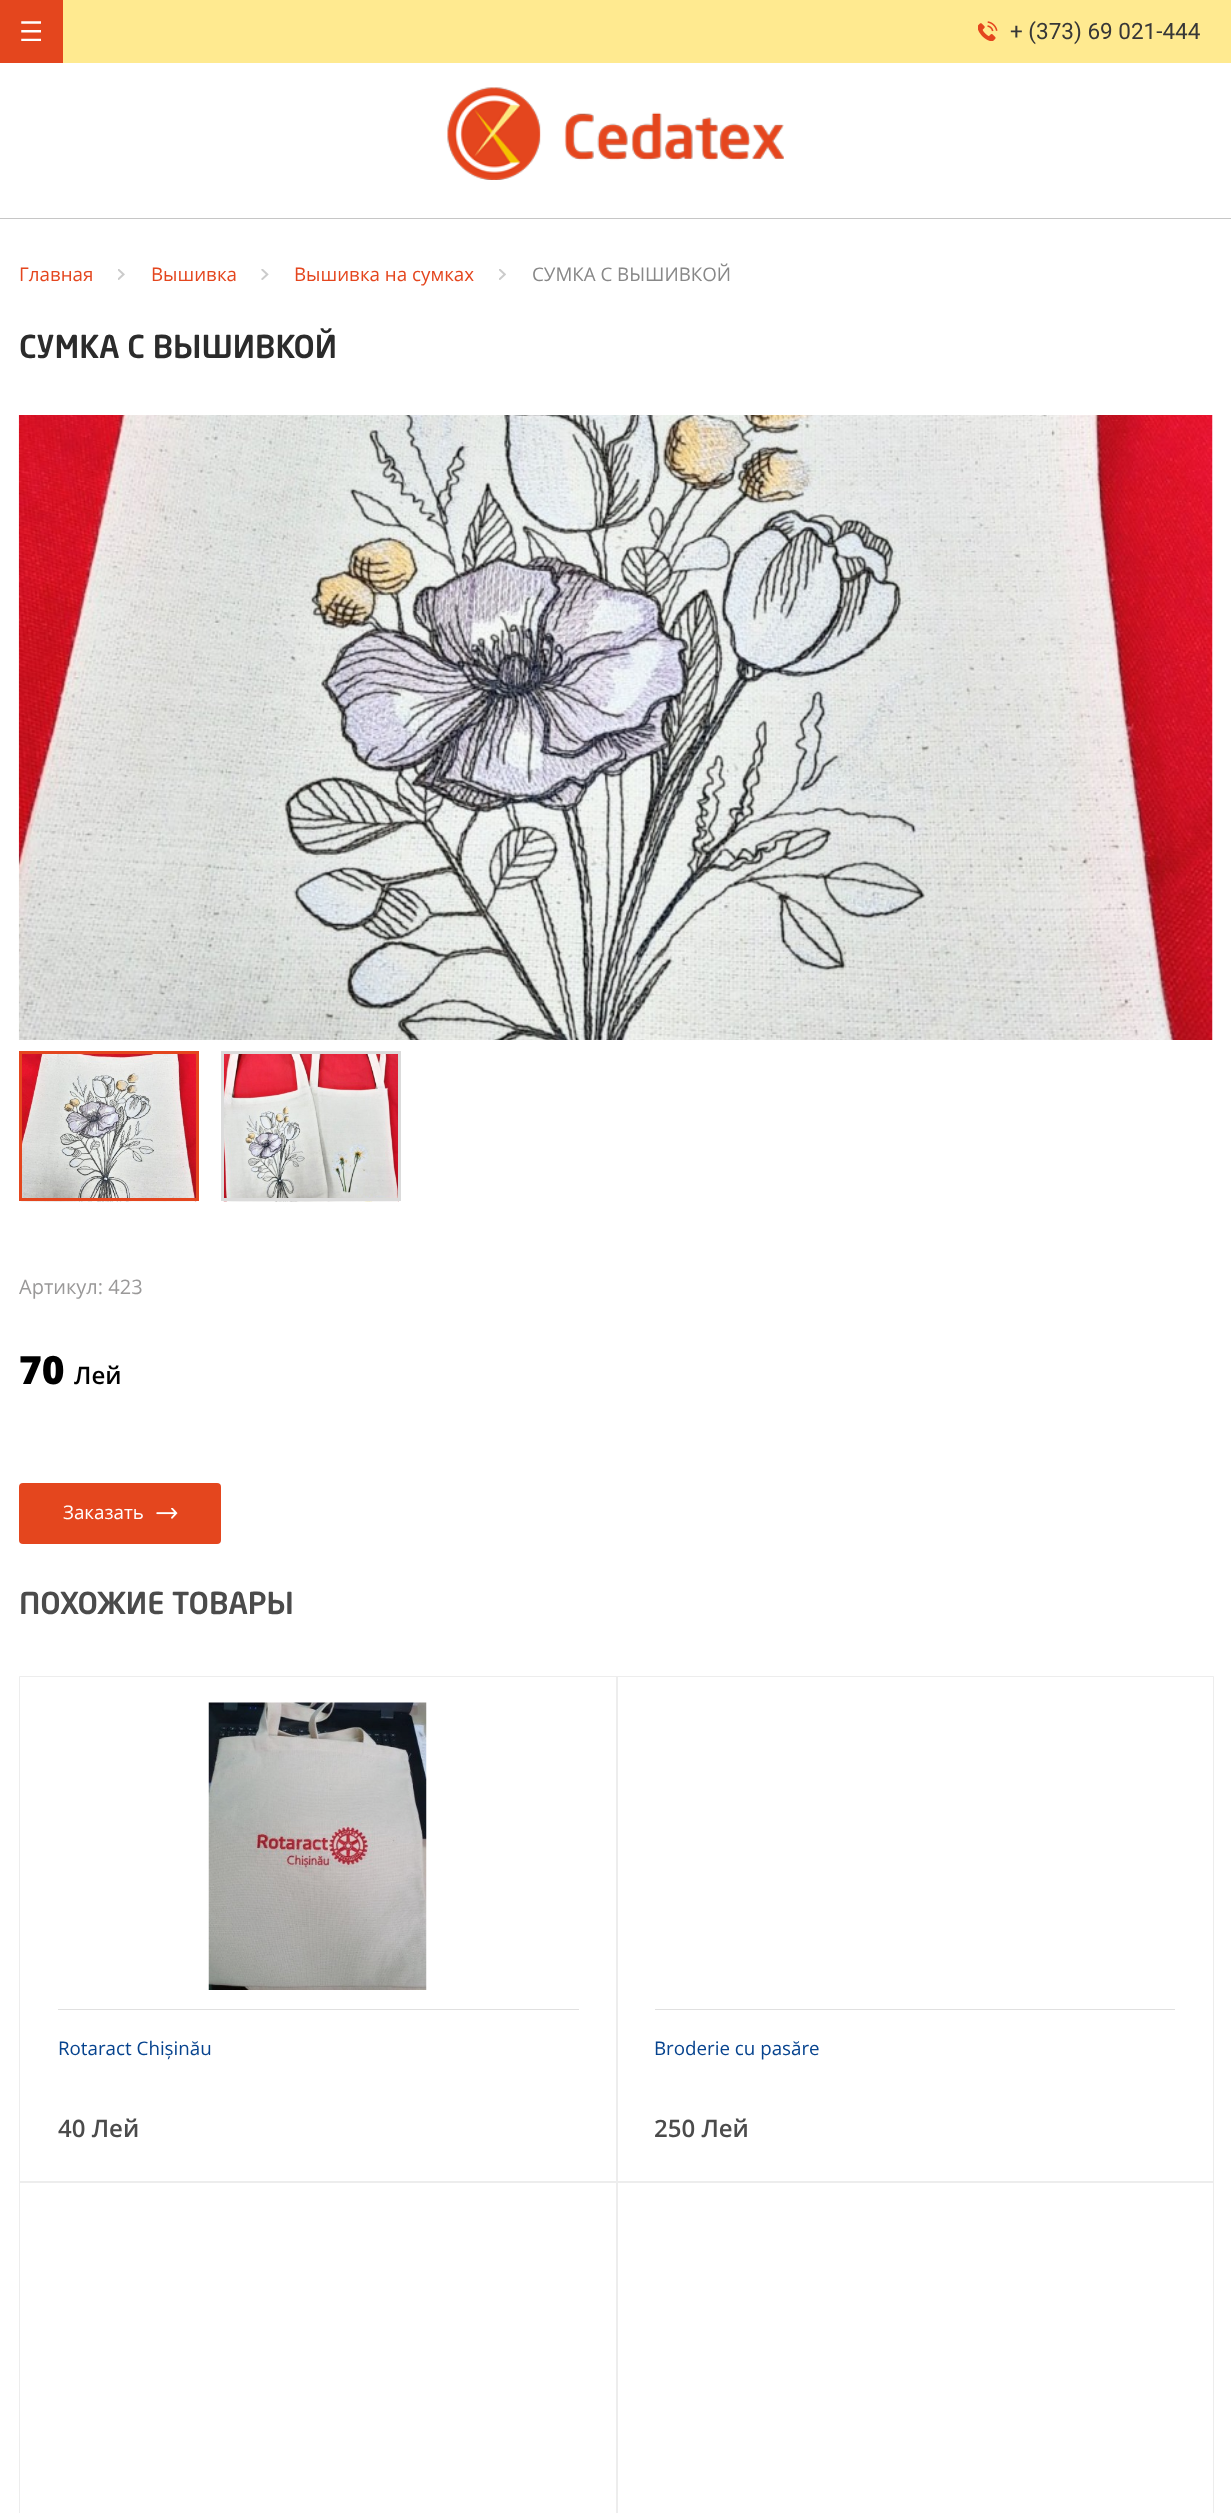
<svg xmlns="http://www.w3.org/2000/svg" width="1231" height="2513">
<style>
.a{font:22.5px Roboto;fill:#373737}
.b{font:18.75px Open Sans;fill:#e4461e}
.c{font:18.75px Open Sans;fill:#888}
.d{font:500 31.25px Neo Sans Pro;fill:#2b2b2b}
.e{font:20px Open Sans;fill:#9a9999}
.f{font:800 39px Open Sans;fill:#000}
.g{font:600 24px Open Sans;fill:#000}
.h{font:18.75px Open Sans;fill:#fff}
.i{font:500 30px Neo Sans Pro;fill:#4b4b4b}
.j{font:18.75px Open Sans;fill:#06438e}
.k{font:600 24px Open Sans;fill:#4b4b4b}
</style>
<rect width="100%" height="100%" fill="#fff"/>
<path fill="#ffea90" d="M63 0h1168v63H63z"/>
<path fill="#e4461e" d="M0 0h63v63H0z"/>
<image href="1.png" x="21" y="21" width="20" height="20"/>
<image href="2.png" x="978" y="21" width="20" height="20"/>
<image href="3.png" x="447" y="87" width="337" height="93"/>
<path fill="#c6c6c6" d="M0 218h1231v1H0z"/>
<image href="4.png" x="118" y="269" width="7" height="11"/>
<image href="5.png" x="261" y="269" width="8" height="11"/>
<image href="6.png" x="499" y="269" width="7" height="11"/>
<image href="7.png" x="18" y="415" width="1195" height="625"/>
<image href="8.png" x="21" y="1054" width="176" height="148"/>
<path fill="none" stroke="#e4461e" stroke-width="3" d="M20.5 1052.5h177v147H20.5z"/>
<image href="9.png" x="223" y="1054" width="176" height="148"/>
<path fill="none" stroke="#dbdbdb" stroke-width="3" d="M222.5 1052.5h177v147H222.5z"/>
<rect fill="#e4461e" x="19" y="1483" width="202" height="61" rx="4"/>
<image href="10.png" x="156" y="1508" width="22" height="11"/>
<path fill="none" stroke="#ededed" d="M19.5 1676.5h598v506H19.5z"/>
<image href="11.png" x="208" y="1702" width="219" height="288"/>
<path fill="#e0e0e0" d="M58 2009h521v1H58z"/>
<path fill="none" stroke="#ededed" d="M616.5 1676.5h597v506H616.5z"/>
<path fill="#e0e0e0" d="M655 2009h520v1H655z"/>
<path fill="none" stroke="#ededed" d="M19.5 2181.5h598v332H19.5z"/>
<path fill="none" stroke="#ededed" d="M616.5 2181.5h597v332H616.5z"/>
<text class="a" x="1010" y="39">+ (373) 69 021-444</text>
<text class="b" x="19" y="281">Главная</text>
<text class="b" x="151" y="281">Вышивка</text>
<text class="b" x="294" y="281">Вышивка на сумках</text>
<text class="c" x="532" y="281">СУМКА С ВЫШИВКОЙ</text>
<text class="d" x="19" y="358">СУМКА С ВЫШИВКОЙ</text>
<text class="e" x="19" y="1294">Артикул: 423</text>
<text class="f" x="19" y="1384">70</text>
<text class="g" x="74" y="1384">Лей</text>
<text class="h" x="63" y="1519">Заказать</text>
<text class="i" x="19" y="1614">ПОХОЖИЕ ТОВАРЫ</text>
<text class="j" x="58" y="2055">Rotaract Chișinău</text>
<text class="k" x="58" y="2137">40 Лей</text>
<text class="j" x="654" y="2055">Broderie cu pasăre</text>
<text class="k" x="654" y="2137">250 Лей</text>
</svg>
